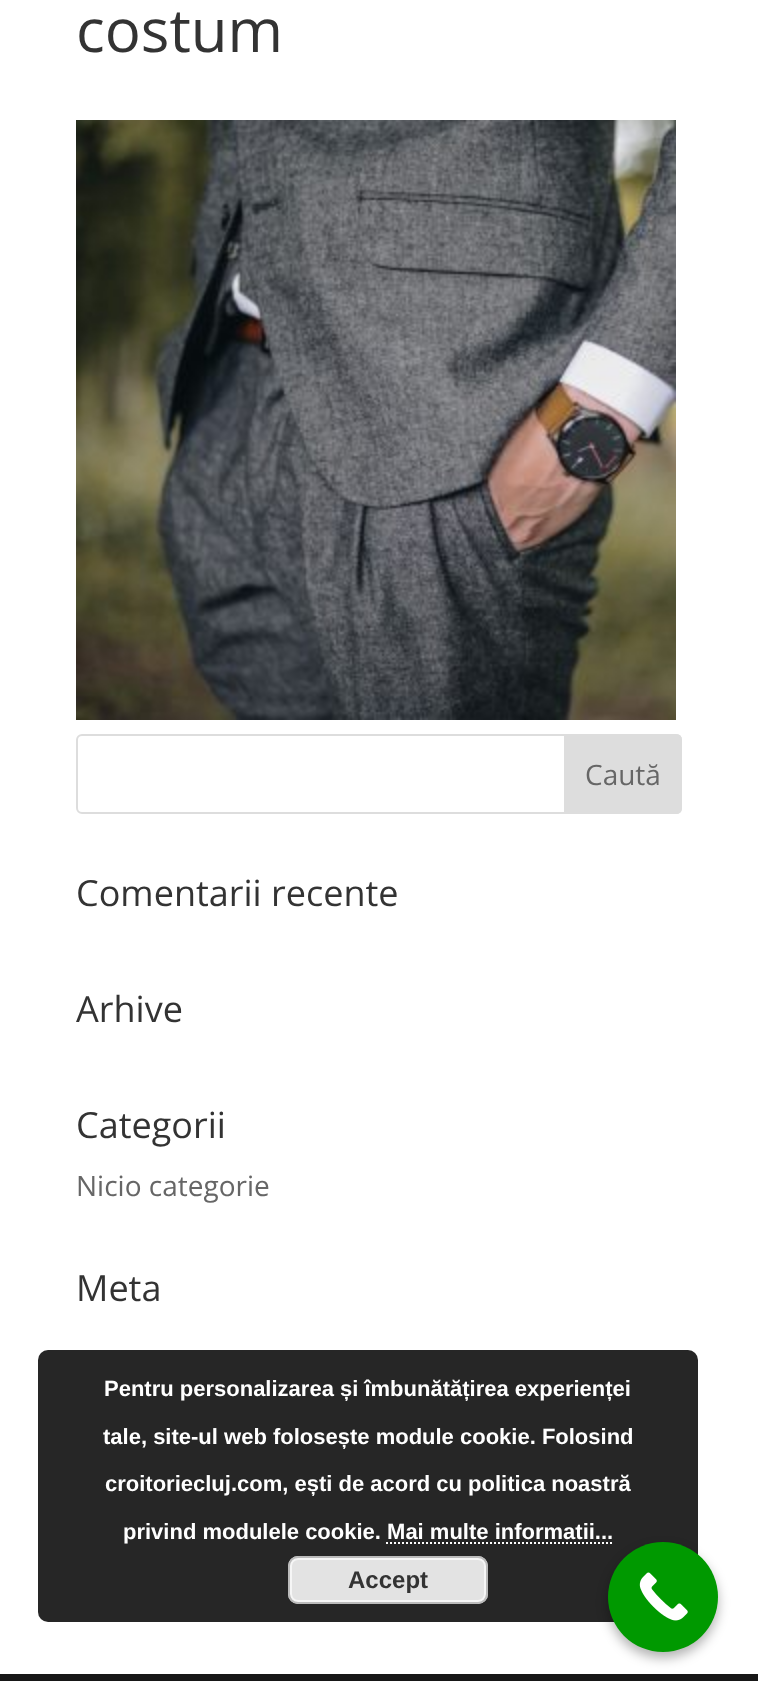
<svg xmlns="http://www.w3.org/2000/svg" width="758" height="1681">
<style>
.a{font:60px Open Sans;fill:#333}
.b{font:28px Open Sans;fill:#666}
.c{font:36px Open Sans;fill:#333}
.d{font:bold 22px Liberation Sans;fill:#fff}
.e{font:bold 24px Liberation Sans;fill:#333}
</style>
<rect width="100%" height="100%" fill="#fff"/>
<image href="1.png" x="76" y="120" width="600" height="600"/>
<rect fill="none" stroke="#ddd" stroke-width="2" x="77" y="735" width="604" height="78" rx="5"/>
<path fill="#ddd" stroke="#ddd" stroke-width="2" d="M565 735h111c3 0 5 2 5 5v68c0 3-2 5-5 5h-111z"/>
<path fill="#171717" d="M0 1674h758v7H0z"/>
<rect fill="#000000d9" x="38" y="1350" width="660" height="272" rx="10"/>
<path fill="none" stroke="#fff" stroke-width="2" stroke-dasharray="2 2" d="M386 1543h228"/>
<rect fill="#e3e3e3" x="288" y="1556" width="200" height="48" rx="10"/>
<rect fill="none" stroke="#f6f6f6" stroke-width="2" x="291" y="1559" width="194" height="42" rx="7"/>
<rect fill="none" stroke="#bbb" stroke-width="2" x="289" y="1557" width="198" height="46" rx="9"/>
<rect fill="#0000004d" filter="blur(6px)" x="608" y="1548" width="110" height="110" rx="55"/>
<text class="a" x="76" y="52">costum</text>
<text class="b" x="585" y="785">Caută</text>
<text class="c" x="76" y="906">Comentarii recente</text>
<text class="c" x="76" y="1022">Arhive</text>
<text class="c" x="76" y="1138">Categorii</text>
<text class="b" x="76" y="1196">Nicio categorie</text>
<text class="c" x="76" y="1301">Meta</text>
<text class="d" x="104" y="1396">Pentru personalizarea și îmbunătățirea experienței</text>
<text class="d" x="103" y="1444">tale, site-ul web folosește module cookie. Folosind</text>
<text class="d" x="105" y="1491">croitoriecluj.com, ești de acord cu politica noastră</text>
<text class="d" x="123" y="1539">privind modulele cookie. Mai multe informatii...</text>
<text class="e" x="348" y="1588">Accept</text>
<circle fill="#090" cx="663" cy="1597" r="55"/>
<image href="2.png" x="639" y="1572" width="49" height="49"/>
</svg>
